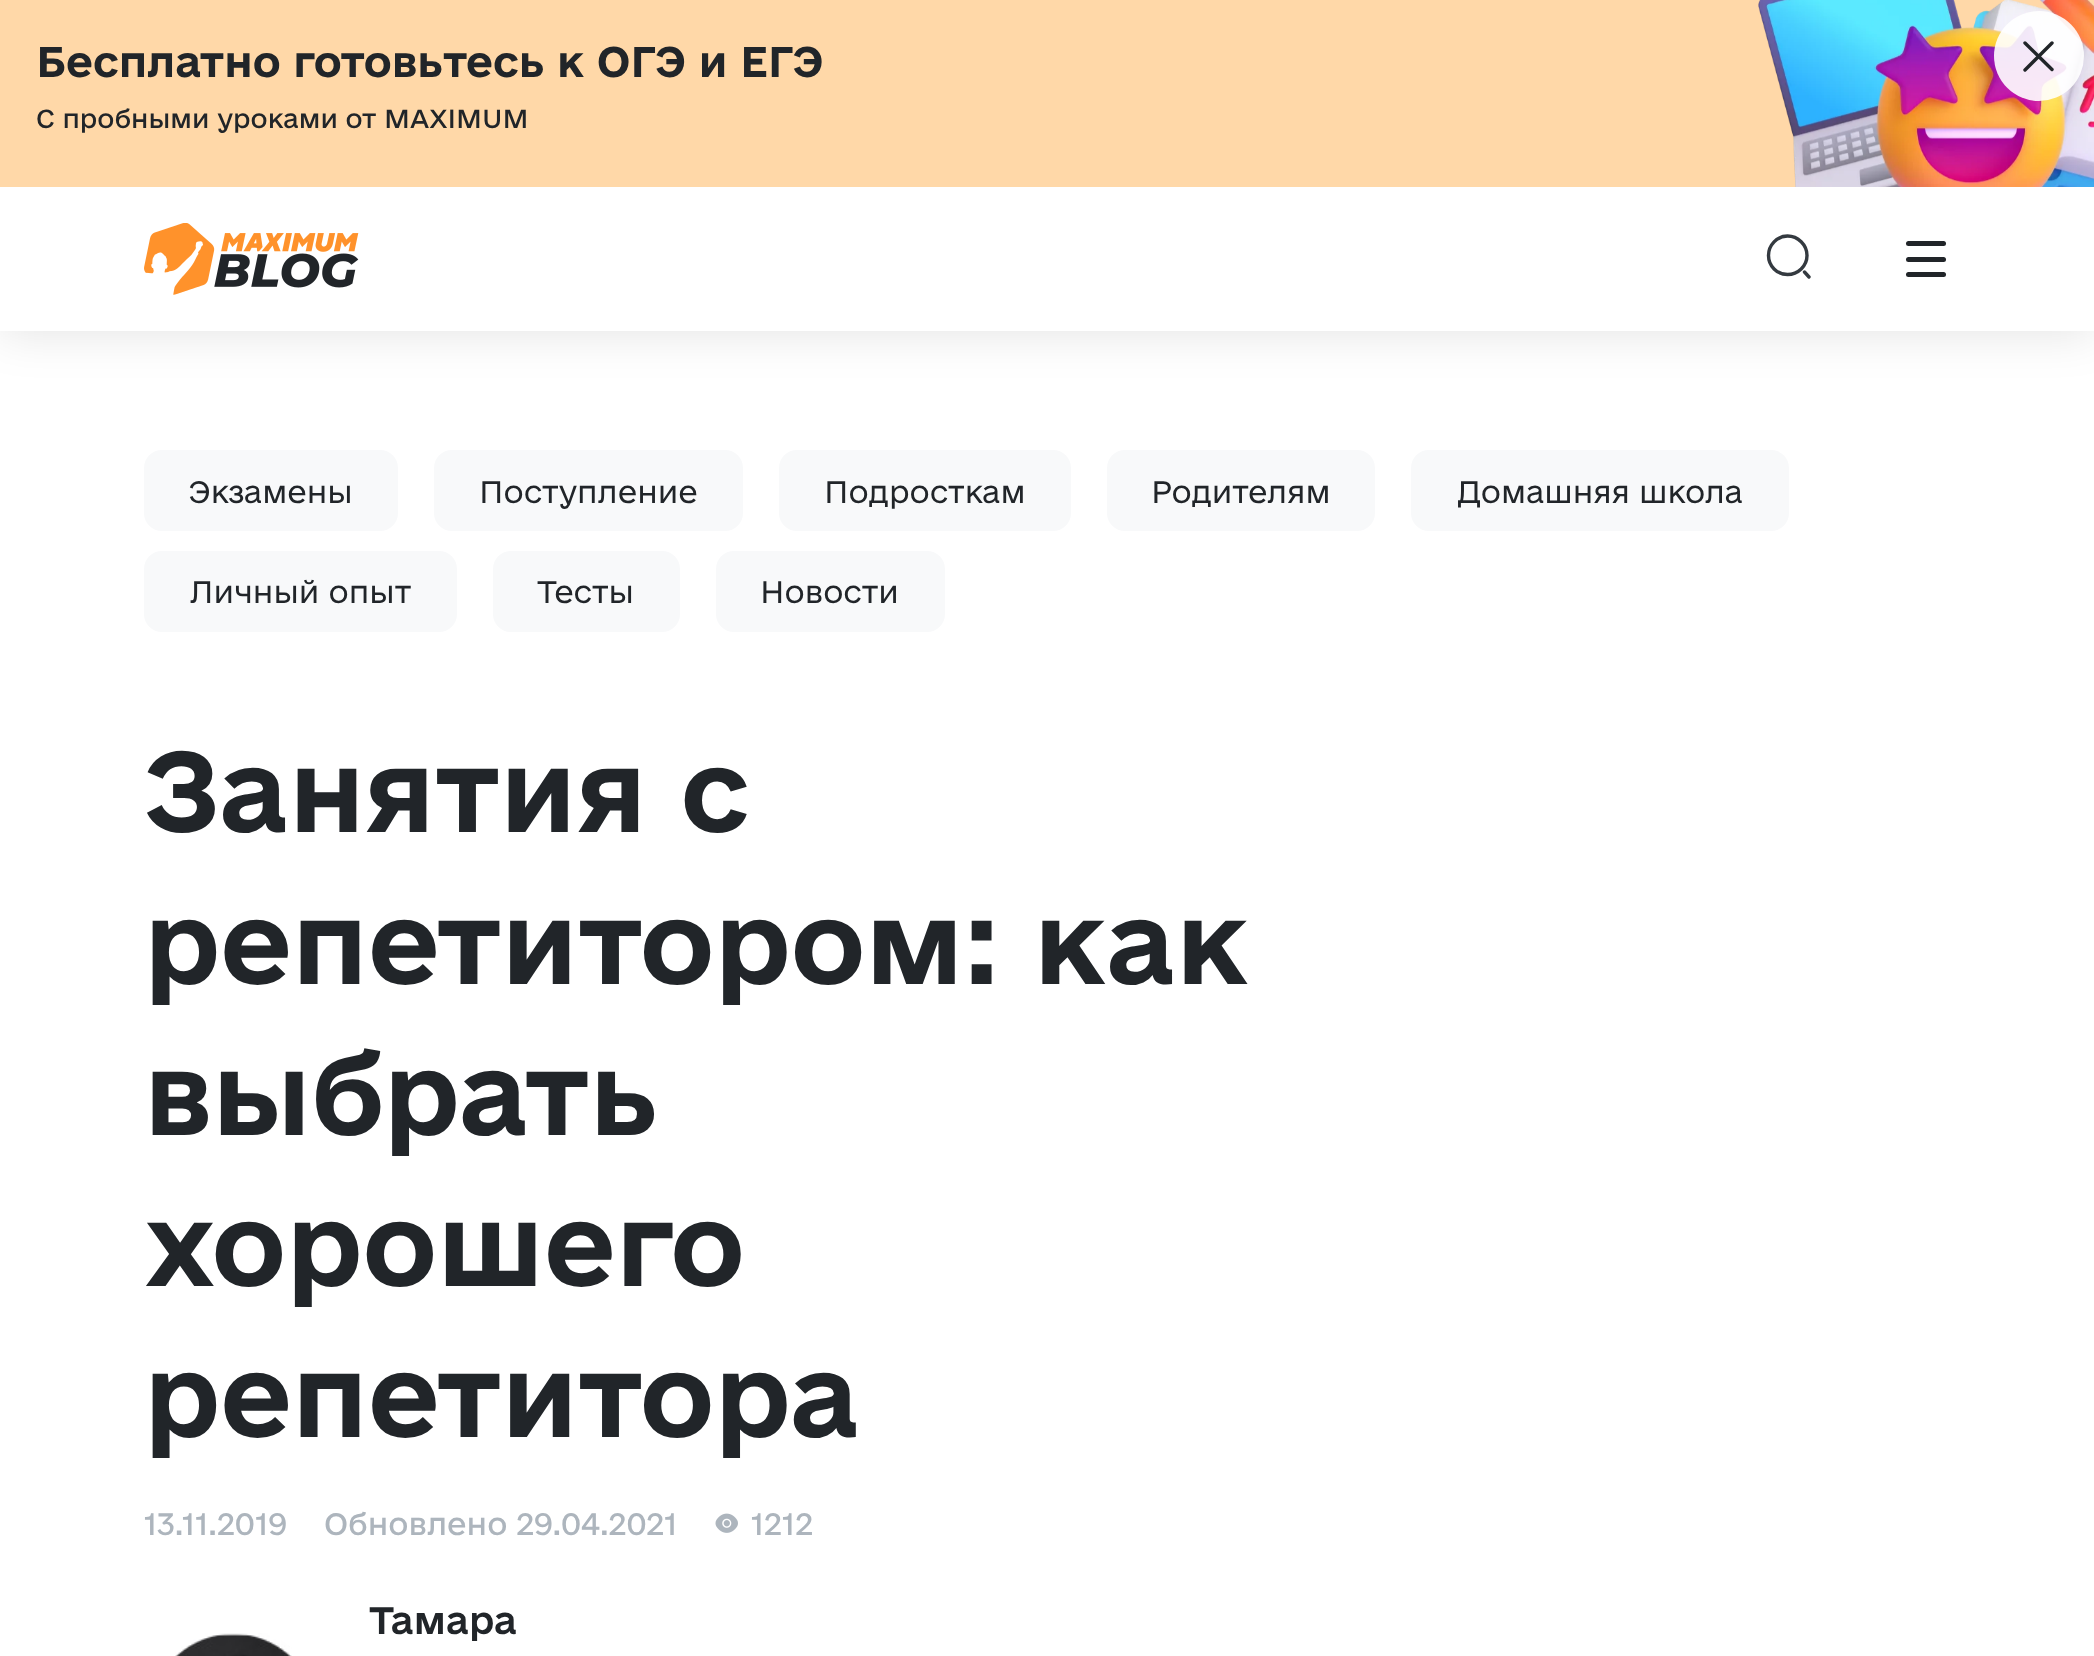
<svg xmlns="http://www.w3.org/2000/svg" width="2094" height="1656">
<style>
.a{font:bold 40.5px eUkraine;fill:#212529}
.b{font:24.75px eUkraine;fill:#212529}
.c{font:300 29.25px eUkraine;fill:#212529}
.d{font:bold 108px eUkraine;fill:#212529}
.e{font:29.25px eUkraine;fill:#adb5bd}
.f{font:500 36px eUkraine;fill:#212529}
</style>
<rect width="100%" height="100%" fill="#fff"/>
<path fill="#0000001a" filter="blur(22.5px)" d="M0 5h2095v330H0z"/>
<path fill="#fff" d="M0 187h2094v144H0z"/>
<path fill="#ffd8a8" d="M0 0h2094v187H0z"/>
<image href="1.png" x="1758" y="0" width="336" height="187"/>
<circle fill="#ffffffe6" cx="2039" cy="56" r="45"/>
<path fill="none" stroke="#212529" stroke-width="3.4" stroke-linecap="round" stroke-linejoin="round" d="M2025 70l27-27m0 26.5l-27-26.5"/>
<image href="2.png" x="144" y="223" width="215" height="72"/>
<path fill="none" stroke="#343a40" stroke-width="3.4" stroke-linecap="round" stroke-linejoin="round" d="M1787.5 274.5c10.5 0 19.5-8.5 19.5-19c0-10.5-9-19.5-19.5-19.5c-10.5 0-19 9-19 19.5c0 10.5 8.5 19 19 19zm21.5 2.5l-4.5-5"/>
<rect fill="#212529" x="1906" y="241" width="40" height="5" rx="2.5"/>
<rect fill="#212529" x="1906" y="257" width="40" height="5" rx="2.5"/>
<rect fill="#212529" x="1906" y="272" width="40" height="5" rx="2.5"/>
<rect fill="#f8f9fa" x="144" y="450" width="254" height="81" rx="18"/>
<rect fill="#f8f9fa" x="434" y="450" width="309" height="81" rx="18"/>
<rect fill="#f8f9fa" x="779" y="450" width="292" height="81" rx="18"/>
<rect fill="#f8f9fa" x="1107" y="450" width="268" height="81" rx="18"/>
<rect fill="#f8f9fa" x="1411" y="450" width="378" height="81" rx="18"/>
<rect fill="#f8f9fa" x="144" y="551" width="313" height="81" rx="18"/>
<rect fill="#f8f9fa" x="493" y="551" width="187" height="81" rx="18"/>
<rect fill="#f8f9fa" x="716" y="551" width="229" height="81" rx="18"/>
<image href="3.png" x="715" y="1513" width="23" height="20"/>
<image href="4.png" x="175" y="1633" width="117" height="23"/>
<text class="a" x="36" y="77">Бесплатно готовьтесь к ОГЭ и ЕГЭ</text>
<text class="b" x="36" y="128">С пробными уроками от MAXIMUM</text>
<text class="c" x="189" y="503">Экзамены</text>
<text class="c" x="479" y="503">Поступление</text>
<text class="c" x="824" y="503">Подросткам</text>
<text class="c" x="1151" y="503">Родителям</text>
<text class="c" x="1457" y="503">Домашняя школа</text>
<text class="c" x="189" y="603">Личный опыт</text>
<text class="c" x="537" y="603">Тесты</text>
<text class="c" x="760" y="603">Новости</text>
<text class="d" x="144" y="832">Занятия с</text>
<text class="d" x="144" y="984">репетитором: как</text>
<text class="d" x="144" y="1135">выбрать</text>
<text class="d" x="144" y="1286">хорошего</text>
<text class="d" x="144" y="1437">репетитора</text>
<text class="e" x="144" y="1535">13.11.2019</text>
<text class="e" x="324" y="1535">Обновлено 29.04.2021</text>
<text class="e" x="751" y="1535">1212</text>
<text class="f" x="369" y="1634">Тамара</text>
</svg>
